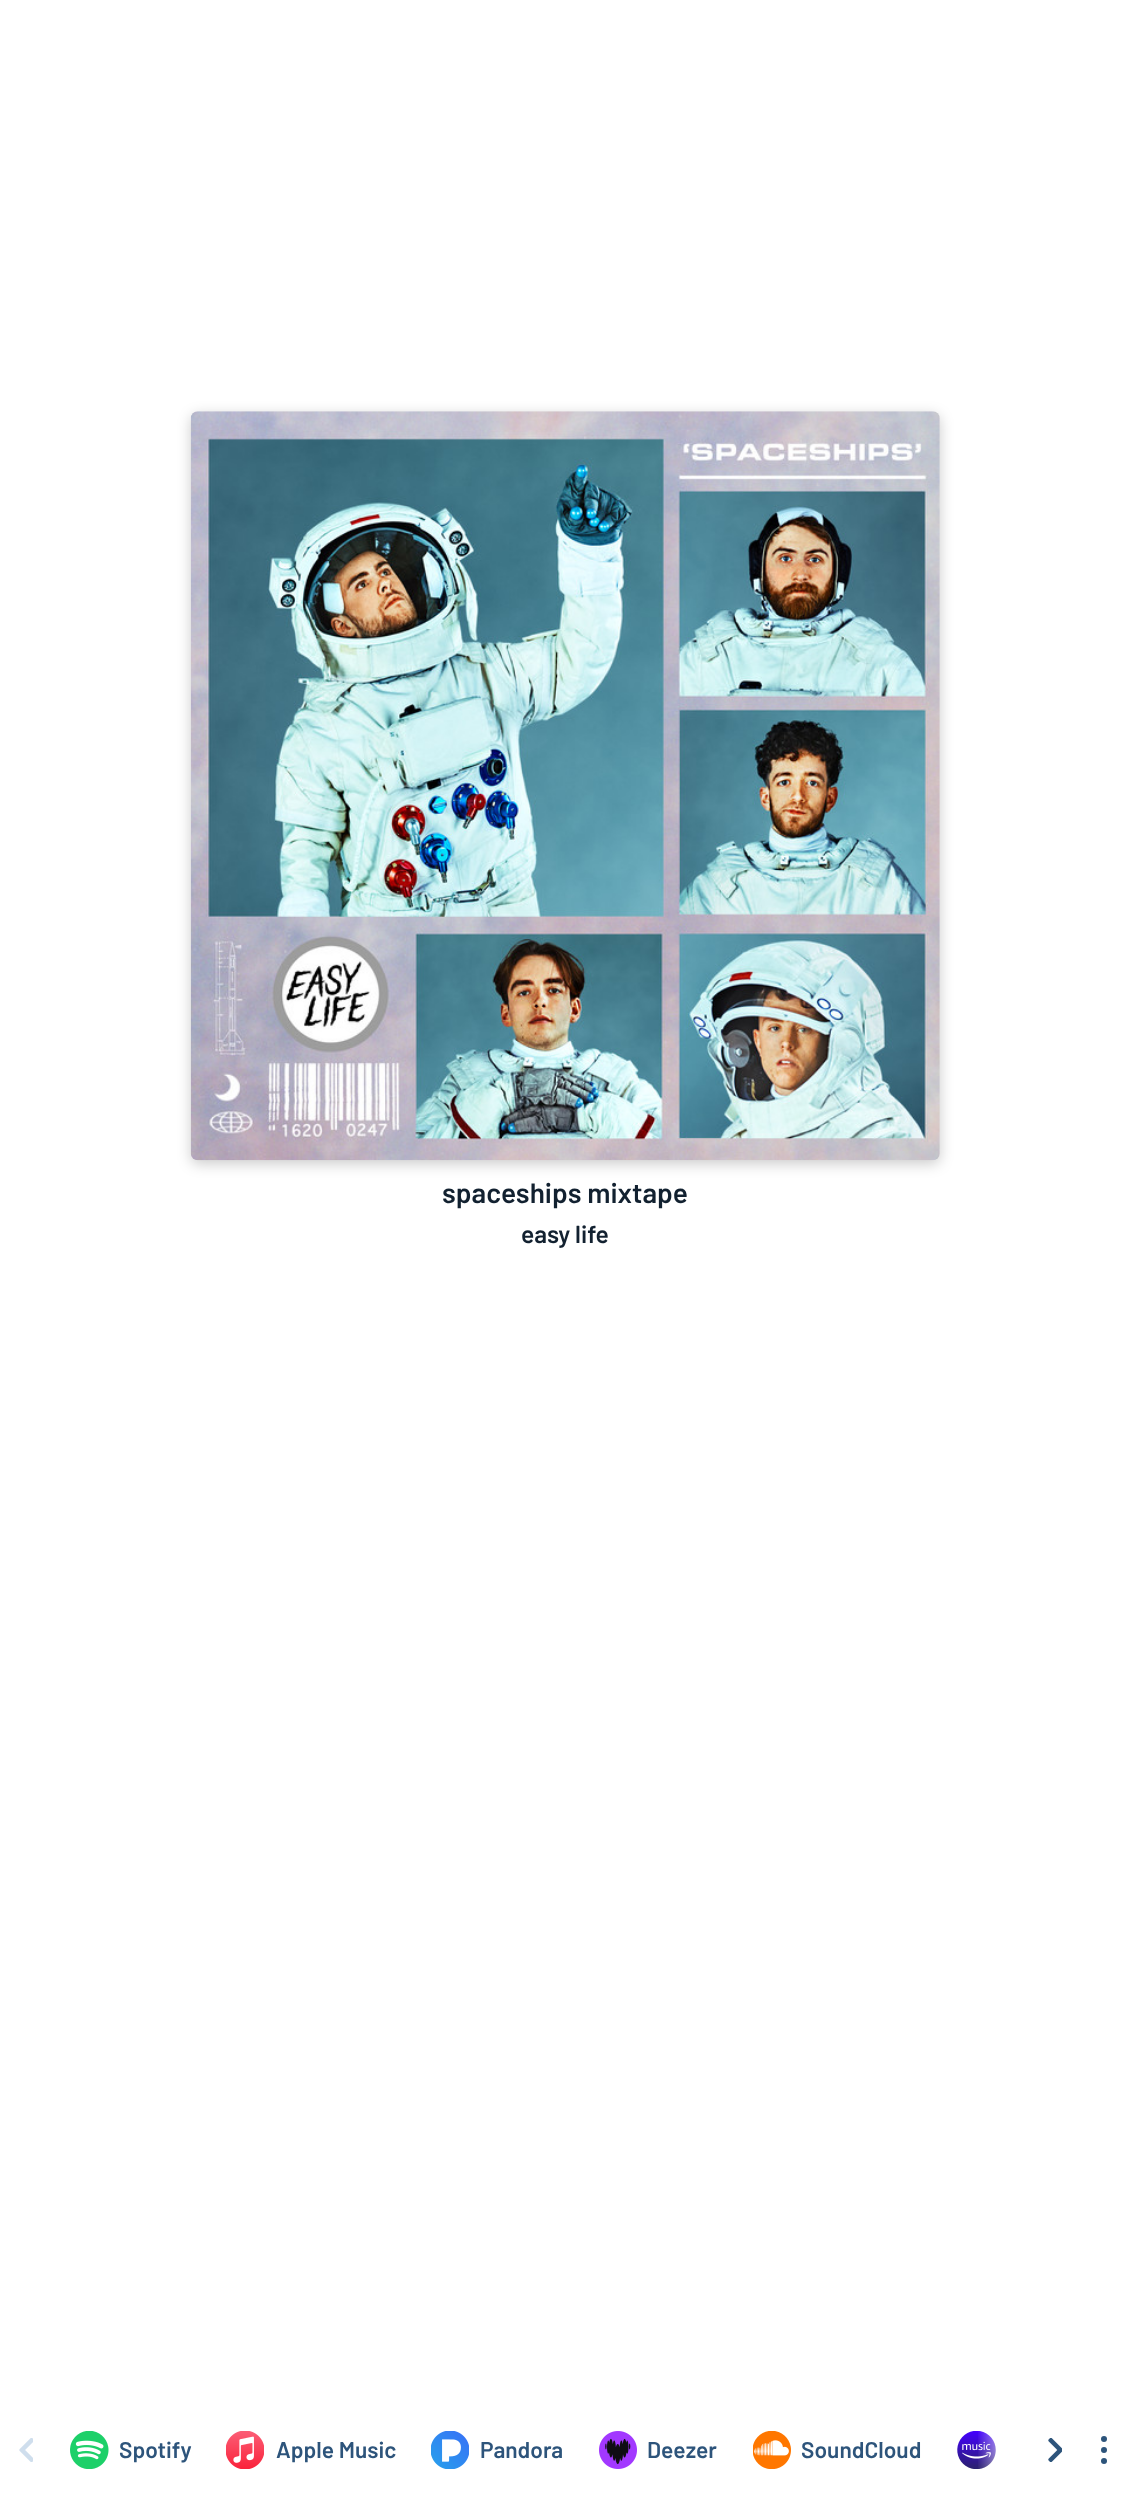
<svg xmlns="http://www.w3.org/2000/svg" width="1130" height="2495">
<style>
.a{font:600 28px Barlow;fill:#122130}
.b{font:600 24.5px Barlow;fill:#122130}
.c{font:600 22.75px Barlow;fill:#2d547b}
</style>
<defs>
<linearGradient id="g1" gradientUnits="userSpaceOnUse" x1="1029" y1="2450" x2="977" y2="2450"><stop offset="0.2" stop-color="#fff"/><stop offset="1" stop-color="#fff" stop-opacity="0"/></linearGradient>
</defs>
<rect width="100%" height="100%" fill="#fff"/>
<rect fill="#00000033" filter="blur(7px)" x="191" y="415" width="749" height="749" rx="7"/>
<image href="1.png" x="190" y="411" width="750" height="750"/>
<image href="2.png" x="19" y="2438" width="14" height="24"/>
<image href="3.png" x="70" y="2431" width="39" height="38"/>
<image href="4.png" x="226" y="2431" width="38" height="38"/>
<image href="5.png" x="431" y="2431" width="38" height="38"/>
<image href="6.png" x="599" y="2431" width="38" height="38"/>
<image href="7.png" x="753" y="2431" width="38" height="38"/>
<image href="8.png" x="957" y="2431" width="39" height="38"/>
<path fill="url(#g1)" d="M978 2431h18v38H978z"/>
<image href="9.png" x="1048" y="2438" width="14" height="24"/>
<circle fill="#2d547b" cx="1104" cy="2461" r="3"/>
<circle fill="#2d547b" cx="1104" cy="2450" r="3"/>
<circle fill="#2d547b" cx="1104" cy="2439" r="3"/>
<text class="a" x="442" y="1203">spaceships mixtape</text>
<text class="b" x="521" y="1243">easy life</text>
<text class="c" x="119" y="2458">Spotify</text>
<text class="c" x="276" y="2458">Apple Music</text>
<text class="c" x="480" y="2458">Pandora</text>
<text class="c" x="647" y="2458">Deezer</text>
<text class="c" x="801" y="2458">SoundCloud</text>
</svg>
